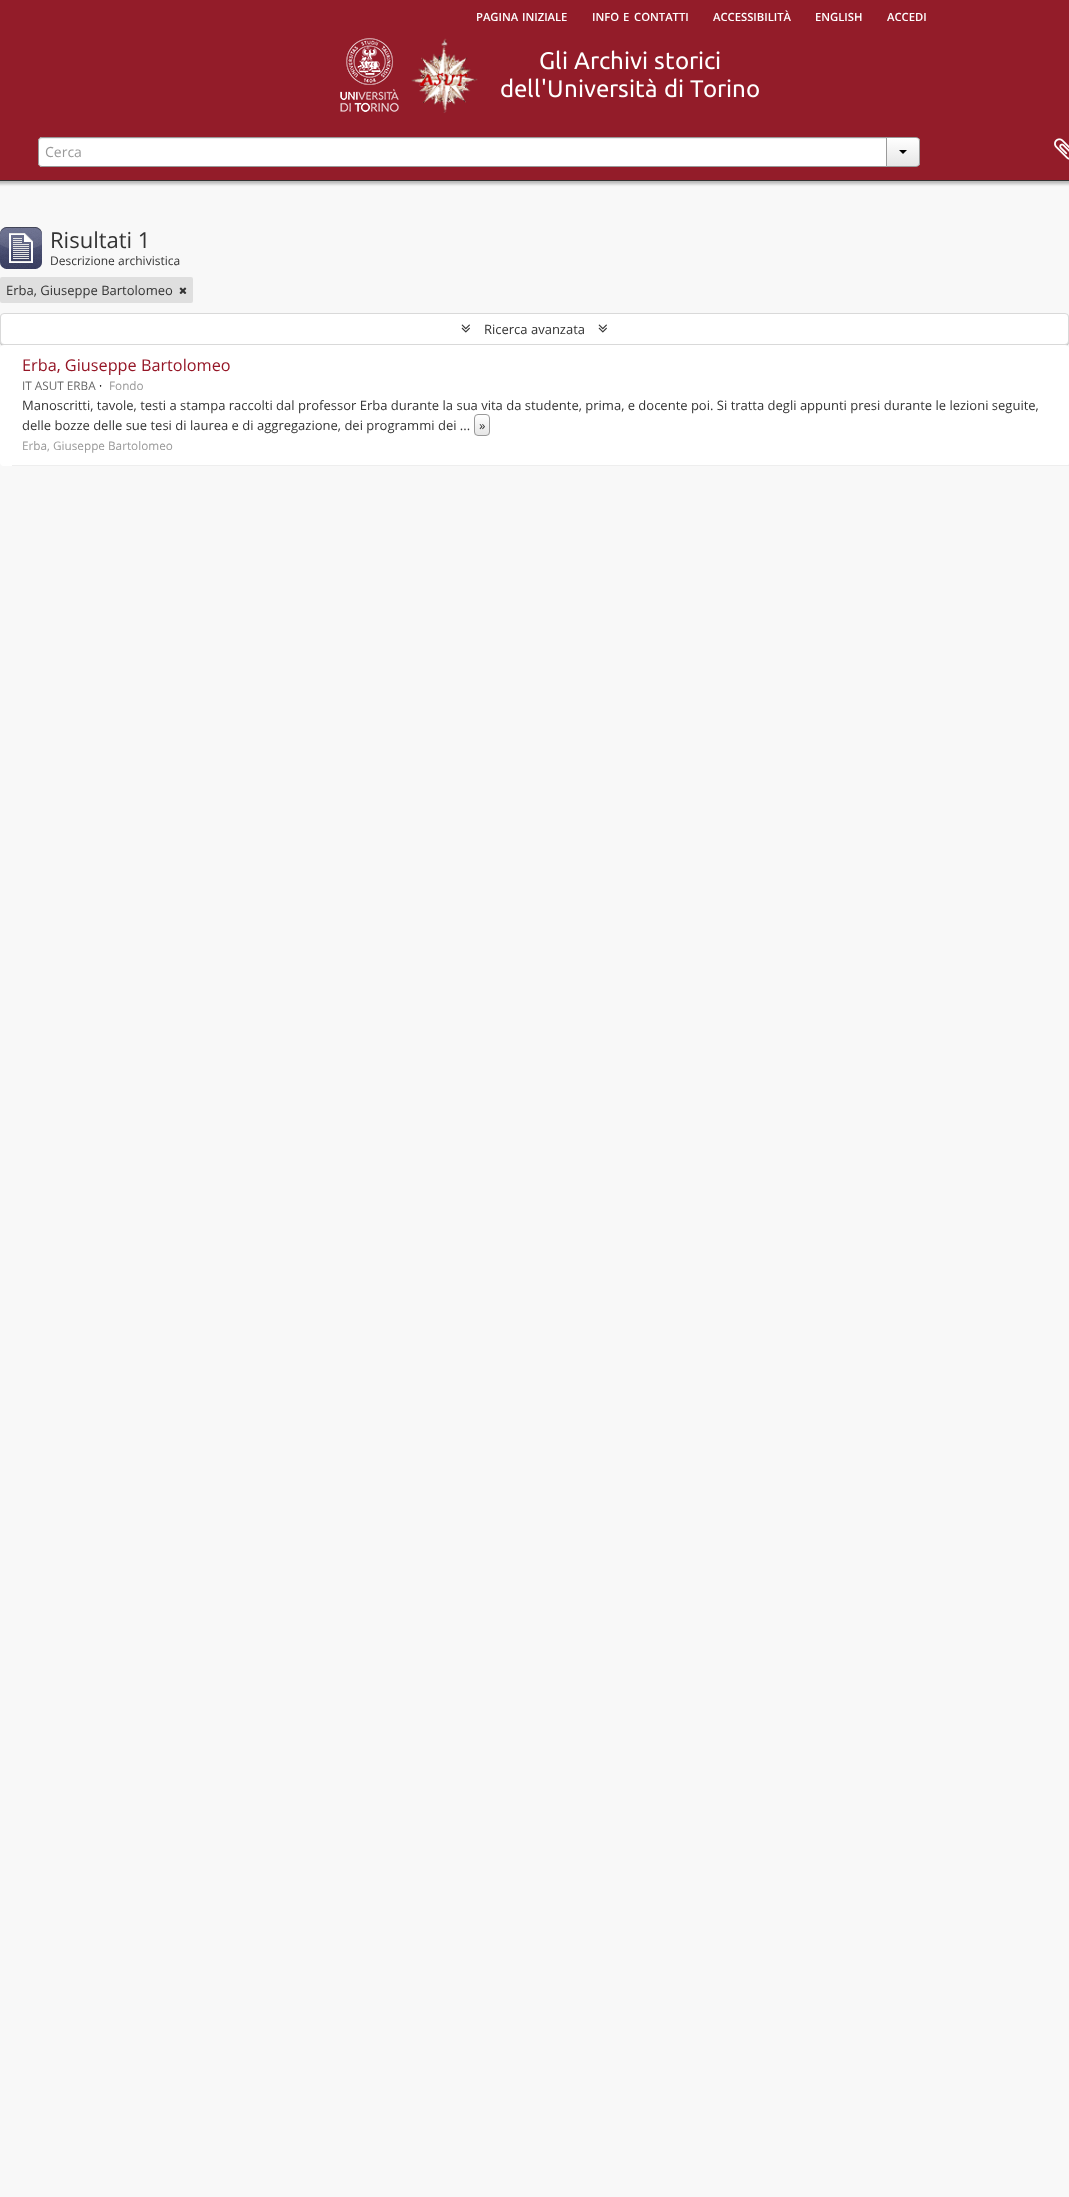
<svg xmlns="http://www.w3.org/2000/svg" width="1069" height="2197">
<style>
.a{font:600 11.25px Open Sans;fill:#fff}
.b{font:14px Open Sans;fill:#999}
.c{font:22px Open Sans;fill:#333}
.d{font:12px Open Sans;fill:#333}
.e{font:13px Open Sans;fill:#333}
.f{font:16.25px Open Sans;fill:#951626}
.g{font:11.75px Open Sans;fill:#666}
.h{font:11.75px Open Sans;fill:#000}
.i{font:11.75px Open Sans;fill:#999}
</style>
<defs>
<clipPath id="clip1"><path d="M886 137h30c2 0 4 2 4 4v22c0 2-2 4-4 4h-30z"/></clipPath>
<linearGradient id="g1" gradientUnits="userSpaceOnUse" x1="903" y1="138" x2="903" y2="166"><stop offset="0" stop-color="#fff"/><stop offset="1" stop-color="#e6e6e6"/></linearGradient>
<clipPath id="clip2"><rect x="474" y="414" width="16" height="22" rx="4"/></clipPath>
<linearGradient id="g2" gradientUnits="userSpaceOnUse" x1="482" y1="415" x2="482" y2="435"><stop offset="0" stop-color="#fff"/><stop offset="1" stop-color="#e6e6e6"/></linearGradient>
</defs>
<rect width="100%" height="100%" fill="#f8f8f8"/>
<path fill="#00000040" filter="blur(1.5px)" d="M-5 3h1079v181H-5z"/>
<path fill="#931c29" d="M0 0h1069v180H0z"/>
<path fill="#333" d="M0 180h1069v1H0z"/>
<image href="1.png" x="340" y="38" width="59" height="74"/>
<image href="2.png" x="411" y="38" width="67" height="75"/>
<image href="3.png" x="501" y="50" width="258" height="48"/>
<path fill="#fff" d="M42 137h845v30h-845c-2 0-4-2-4-4v-22c0-2 2-4 4-4z"/>
<path fill="#ececec" d="M42 139h844v-1h-844c-2 0-3 2-3 4c0-2 1-3 3-3z"/>
<path fill="none" stroke="#9a9a9a" d="M42 137.5h844.5v29h-844.5c-2 0-3.5-1.5-3.5-3.5v-22c0-2 1.5-3.5 3.5-3.5z"/>
<g clip-path="url(#clip1)">
<path fill="url(#g1)" d="M887 138h33v28H887z"/>
</g>
<path fill="none" stroke="#9a9a9a" d="M886.5 137.5h29.5c2 0 3.5 1.5 3.5 3.5v22c0 2-1.5 3.5-3.5 3.5h-29.5z"/>
<path fill="#000" d="M899 150h8l-4 4z"/>
<image href="4.png" x="1054" y="138" width="15" height="22"/>
<image href="5.png" x="0" y="227" width="42" height="42"/>
<rect fill="#dfdfdf" y="277" width="193" height="26" rx="2"/>
<image href="6.png" x="179" y="287" width="8" height="7"/>
<rect fill="#00000033" filter="blur(0.5px)" y="314" width="1069" height="32" rx="4"/>
<rect fill="#fff" stroke="#d9d9d9" x="0.5" y="313.5" width="1068" height="31" rx="3.5"/>
<image href="7.png" x="461" y="324" width="9" height="9"/>
<image href="7.png" x="598" y="324" width="9" height="9"/>
<rect fill="#fff" y="345" width="1069" height="121" rx="4"/>
<path fill="#eee" d="M12 465h1057v1H12z"/>
<g clip-path="url(#clip2)">
<path fill="url(#g2)" d="M474 415h16v20H474z"/>
</g>
<rect fill="none" stroke="#999" x="474.5" y="414.5" width="15" height="21" rx="3.5"/>
<text class="a" x="476" y="21">PAGINA</text>
<text class="a" x="522" y="21">INIZIALE</text>
<text class="a" x="592" y="21">INFO</text>
<text class="a" x="623" y="21">E</text>
<text class="a" x="634" y="21">CONTATTI</text>
<text class="a" x="713" y="21">ACCESSIBILITÀ</text>
<text class="a" x="815" y="21">ENGLISH</text>
<text class="a" x="887" y="21">ACCEDI</text>
<text class="b" x="45" y="157">Cerca</text>
<text class="c" x="50" y="248">Risultati 1</text>
<text class="d" x="50" y="265">Descrizione archivistica</text>
<text class="e" x="6" y="295">Erba, Giuseppe Bartolomeo</text>
<text class="e" x="484" y="334">Ricerca avanzata</text>
<text class="f" x="22" y="371">Erba, Giuseppe Bartolomeo</text>
<text class="g" x="22" y="390">IT ASUT ERBA</text>
<text class="h" x="99" y="390">·</text>
<text class="i" x="109" y="390">Fondo</text>
<text class="e" x="22" y="410">Manoscritti, tavole, testi a stampa raccolti dal professor Erba durante la sua vita da studente, prima, e docente poi. Si tratta degli appunti presi durante le lezioni seguite,</text>
<text class="e" x="22" y="430">delle bozze delle sue tesi di laurea e di aggregazione, dei programmi dei ...</text>
<text class="e" x="479" y="430">»</text>
<text class="i" x="22" y="450">Erba, Giuseppe Bartolomeo</text>
</svg>
